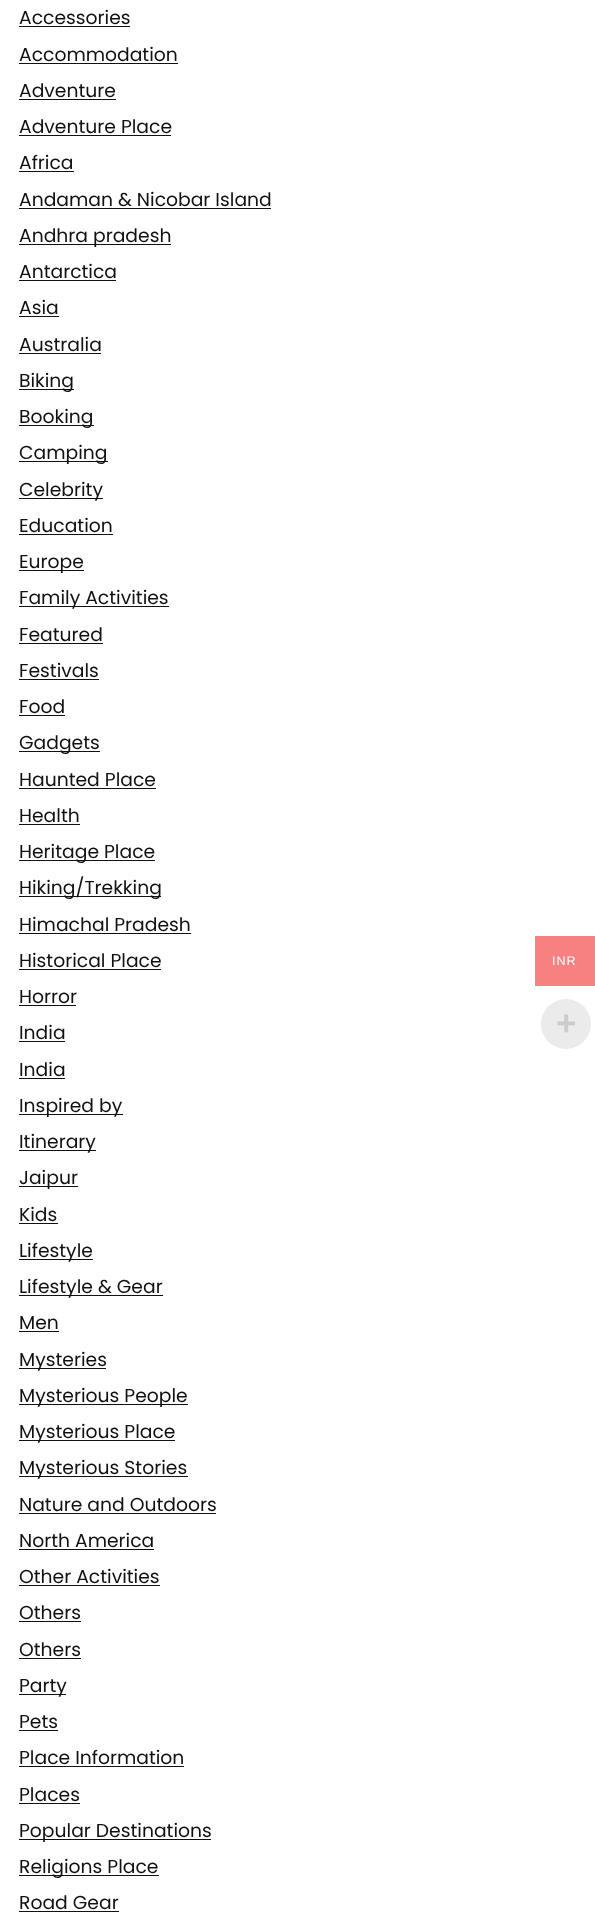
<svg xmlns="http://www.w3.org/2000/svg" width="595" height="1920">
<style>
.a{font:18.75px Poppins;fill:#111}
.b{font:12.5px Liberation Sans;letter-spacing:1px;fill:#fff}
.c{font:bold 35px Liberation Sans;fill:#ccc}
</style>
<rect width="100%" height="100%" fill="#fff"/>
<path fill="#111" d="M19 26h111v1H19z"/>
<path fill="#111" d="M19 63h159v1H19z"/>
<path fill="#111" d="M19 99h97v1H19z"/>
<path fill="#111" d="M19 135h152v1H19z"/>
<path fill="#111" d="M19 171h55v1H19z"/>
<path fill="#111" d="M19 208h252v1H19z"/>
<path fill="#111" d="M19 244h152v1H19z"/>
<path fill="#111" d="M19 280h97v1H19z"/>
<path fill="#111" d="M19 316h40v1H19z"/>
<path fill="#111" d="M19 353h82v1H19z"/>
<path fill="#111" d="M19 389h55v1H19z"/>
<path fill="#111" d="M19 425h75v1H19z"/>
<path fill="#111" d="M19 461h89v1H19z"/>
<path fill="#111" d="M19 498h84v1H19z"/>
<path fill="#111" d="M19 534h94v1H19z"/>
<path fill="#111" d="M19 570h65v1H19z"/>
<path fill="#111" d="M19 606h150v1H19z"/>
<path fill="#111" d="M19 643h84v1H19z"/>
<path fill="#111" d="M19 679h80v1H19z"/>
<path fill="#111" d="M19 715h46v1H19z"/>
<path fill="#111" d="M19 751h81v1H19z"/>
<path fill="#111" d="M19 788h137v1H19z"/>
<path fill="#111" d="M19 824h61v1H19z"/>
<path fill="#111" d="M19 860h136v1H19z"/>
<path fill="#111" d="M19 896h142v1H19z"/>
<path fill="#111" d="M19 933h172v1H19z"/>
<path fill="#111" d="M19 969h142v1H19z"/>
<path fill="#111" d="M19 1005h57v1H19z"/>
<path fill="#111" d="M19 1041h46v1H19z"/>
<path fill="#111" d="M19 1078h46v1H19z"/>
<path fill="#111" d="M19 1114h104v1H19z"/>
<path fill="#111" d="M19 1150h77v1H19z"/>
<path fill="#111" d="M19 1186h59v1H19z"/>
<path fill="#111" d="M19 1223h39v1H19z"/>
<path fill="#111" d="M19 1259h74v1H19z"/>
<path fill="#111" d="M19 1295h144v1H19z"/>
<path fill="#111" d="M19 1331h40v1H19z"/>
<path fill="#111" d="M19 1368h87v1H19z"/>
<path fill="#111" d="M19 1404h169v1H19z"/>
<path fill="#111" d="M19 1440h156v1H19z"/>
<path fill="#111" d="M19 1476h169v1H19z"/>
<path fill="#111" d="M19 1513h197v1H19z"/>
<path fill="#111" d="M19 1549h135v1H19z"/>
<path fill="#111" d="M19 1585h141v1H19z"/>
<path fill="#111" d="M19 1621h62v1H19z"/>
<path fill="#111" d="M19 1658h62v1H19z"/>
<path fill="#111" d="M19 1694h47v1H19z"/>
<path fill="#111" d="M19 1730h39v1H19z"/>
<path fill="#111" d="M19 1766h165v1H19z"/>
<path fill="#111" d="M19 1803h61v1H19z"/>
<path fill="#111" d="M19 1839h192v1H19z"/>
<path fill="#111" d="M19 1875h140v1H19z"/>
<path fill="#111" d="M19 1911h100v1H19z"/>
<path fill="#f78080" d="M535 936h60v50H535z"/>
<circle fill="#ebebeb" cx="566" cy="1024" r="25"/>
<text class="a" x="19" y="24">Accessories</text>
<text class="a" x="19" y="61">Accommodation</text>
<text class="a" x="19" y="97">Adventure</text>
<text class="a" x="19" y="133">Adventure Place</text>
<text class="a" x="19" y="169">Africa</text>
<text class="a" x="19" y="206">Andaman &amp; Nicobar Island</text>
<text class="a" x="19" y="242">Andhra pradesh</text>
<text class="a" x="19" y="278">Antarctica</text>
<text class="a" x="19" y="314">Asia</text>
<text class="a" x="19" y="351">Australia</text>
<text class="a" x="19" y="387">Biking</text>
<text class="a" x="19" y="423">Booking</text>
<text class="a" x="19" y="459">Camping</text>
<text class="a" x="19" y="496">Celebrity</text>
<text class="a" x="19" y="532">Education</text>
<text class="a" x="19" y="568">Europe</text>
<text class="a" x="19" y="604">Family Activities</text>
<text class="a" x="19" y="641">Featured</text>
<text class="a" x="19" y="677">Festivals</text>
<text class="a" x="19" y="713">Food</text>
<text class="a" x="19" y="749">Gadgets</text>
<text class="a" x="19" y="786">Haunted Place</text>
<text class="a" x="19" y="822">Health</text>
<text class="a" x="19" y="858">Heritage Place</text>
<text class="a" x="19" y="894">Hiking/Trekking</text>
<text class="a" x="19" y="931">Himachal Pradesh</text>
<text class="a" x="19" y="967">Historical Place</text>
<text class="a" x="19" y="1003">Horror</text>
<text class="a" x="19" y="1039">India</text>
<text class="a" x="19" y="1076">India</text>
<text class="a" x="19" y="1112">Inspired by</text>
<text class="a" x="19" y="1148">Itinerary</text>
<text class="a" x="19" y="1184">Jaipur</text>
<text class="a" x="19" y="1221">Kids</text>
<text class="a" x="19" y="1257">Lifestyle</text>
<text class="a" x="19" y="1293">Lifestyle &amp; Gear</text>
<text class="a" x="19" y="1329">Men</text>
<text class="a" x="19" y="1366">Mysteries</text>
<text class="a" x="19" y="1402">Mysterious People</text>
<text class="a" x="19" y="1438">Mysterious Place</text>
<text class="a" x="19" y="1474">Mysterious Stories</text>
<text class="a" x="19" y="1511">Nature and Outdoors</text>
<text class="a" x="19" y="1547">North America</text>
<text class="a" x="19" y="1583">Other Activities</text>
<text class="a" x="19" y="1619">Others</text>
<text class="a" x="19" y="1656">Others</text>
<text class="a" x="19" y="1692">Party</text>
<text class="a" x="19" y="1728">Pets</text>
<text class="a" x="19" y="1764">Place Information</text>
<text class="a" x="19" y="1801">Places</text>
<text class="a" x="19" y="1837">Popular Destinations</text>
<text class="a" x="19" y="1873">Religions Place</text>
<text class="a" x="19" y="1909">Road Gear</text>
<text class="b" x="552" y="965">INR</text>
<text class="c" x="556" y="1035">+</text>
</svg>
